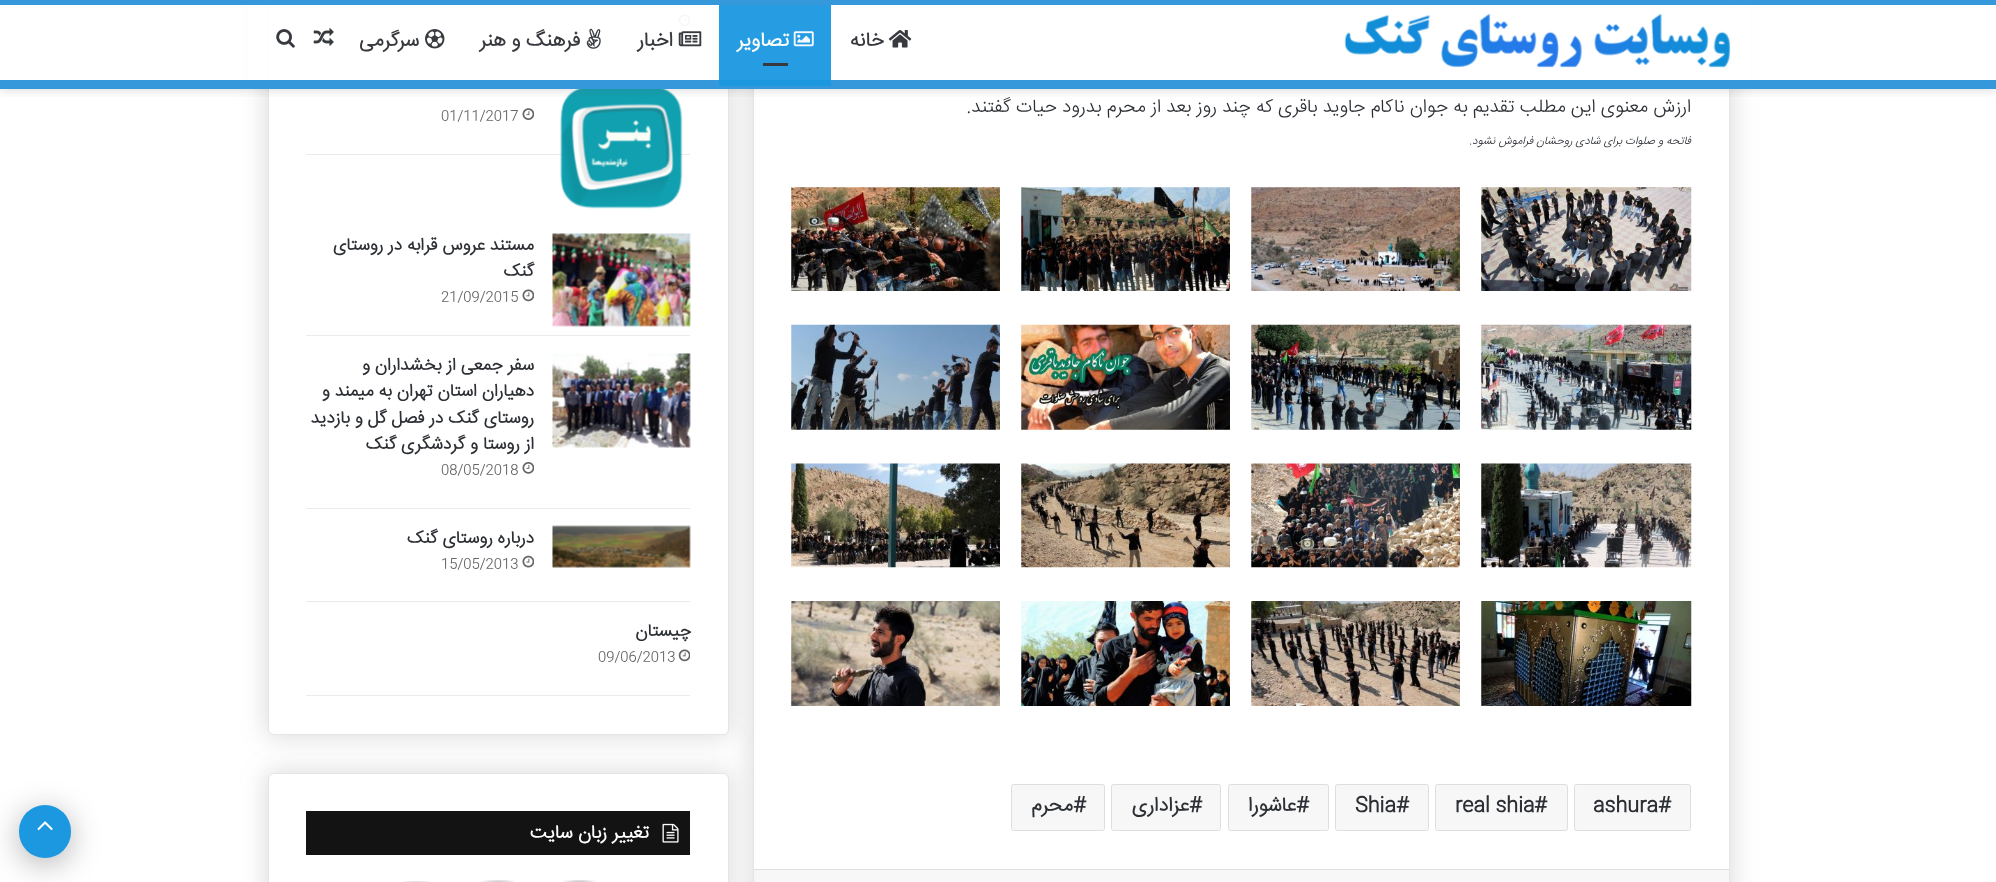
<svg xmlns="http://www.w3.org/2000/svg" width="1996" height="882">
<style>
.a{font:bold 20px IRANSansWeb;direction:rtl;fill:#37393e}
.b{font:bold 20px IRANSansWeb;direction:rtl;fill:#fff}
.c{font:300 18.75px IRANSansWeb;direction:rtl;fill:#2c2f34}
.d{font:italic 300 11.25px IRANSansWeb;direction:rtl;fill:#2c2f34}
.e{font:bold 20px IRANSansWeb;fill:#2c2f34}
.f{font:bold 20px IRANSansWeb;direction:rtl;fill:#2c2f34}
.g{font:300 13.75px IRANSansWeb;fill:#666}
.h{font:bold 17.5px IRANSansWeb;direction:rtl;fill:#2c2f34}
.i{font:bold 18.75px IRANSansWeb;direction:rtl;fill:#fff}
</style>
<defs>
<clipPath id="clip1"><path d="M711 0h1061v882h-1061zm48-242h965c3.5 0 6 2.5 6 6v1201c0 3.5-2.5 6-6 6h-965c-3.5 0-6-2.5-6-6v-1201c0-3.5 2.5-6 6-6z" clip-rule="evenodd"/></clipPath>
<clipPath id="clip2"><path d="M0 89h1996v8H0z"/></clipPath>
</defs>
<rect width="100%" height="100%" fill="#fff"/>
<g clip-path="url(#clip1)">
<rect fill="#5b5b5b33" filter="blur(12.5px)" x="750" y="-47" width="983" height="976" rx="9"/>
</g>
<path fill="none" stroke="#e6e6e6" d="M753.5 -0.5h976v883H753.5z"/>
<rect fill="#5b5b5b33" filter="blur(12.5px)" x="265" y="-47" width="466" height="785" rx="9"/>
<rect fill="#fff" stroke="#e5e5e5" x="268.5" y="-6.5" width="460" height="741" rx="5.5"/>
<path fill="#ebebeb" d="M306 60h384v1H306z"/>
<image href="25.png" x="678" y="14" width="12" height="13"/>
<path fill="#ebebeb" d="M306 154h384v1H306z"/>
<image href="26.png" x="560" y="89" width="123" height="120"/>
<g clip-path="url(#clip2)">
<path fill="#63636333" filter="blur(5px)" d="M0 1h1996v90H0z"/>
</g>
<path fill="#fffffff2" d="M248 5h1502v75H248z"/>
<path fill="#3498db" d="M0 0h1996v5H0z"/>
<path fill="#3498db" d="M0 80h1996v9H0z"/>
<image href="1.png" x="1344" y="13" width="387" height="55"/>
<image href="2.png" x="888" y="30" width="24" height="18"/>
<path fill="#1c98e0" d="M719 80h112v6H719z"/>
<path fill="#269de2" d="M719 5h112v75H719z"/>
<image href="3.png" x="793" y="31" width="21" height="16"/>
<path fill="#37393e" d="M763 63h25v3H763z"/>
<image href="4.png" x="678" y="31" width="24" height="16"/>
<image href="5.png" x="586" y="28" width="15" height="21"/>
<image href="6.png" x="425" y="29" width="20" height="20"/>
<image href="7.png" x="313" y="28" width="21" height="18"/>
<image href="8.png" x="276" y="29" width="19" height="19"/>
<image href="9.png" x="1481" y="187" width="211" height="104"/>
<image href="10.png" x="1251" y="187" width="209" height="104"/>
<image href="11.png" x="1021" y="187" width="209" height="104"/>
<image href="12.png" x="791" y="187" width="209" height="104"/>
<image href="13.png" x="1481" y="324" width="211" height="106"/>
<image href="14.png" x="1251" y="324" width="209" height="106"/>
<image href="15.png" x="1021" y="324" width="209" height="106"/>
<image href="16.png" x="791" y="324" width="209" height="106"/>
<image href="17.png" x="1481" y="463" width="211" height="105"/>
<image href="18.png" x="1251" y="463" width="209" height="105"/>
<image href="19.png" x="1021" y="463" width="209" height="105"/>
<image href="20.png" x="791" y="463" width="209" height="105"/>
<image href="21.png" x="1481" y="601" width="211" height="105"/>
<image href="22.png" x="1251" y="601" width="209" height="105"/>
<image href="23.png" x="1021" y="601" width="209" height="105"/>
<image href="24.png" x="791" y="601" width="209" height="105"/>
<rect fill="#f7f7f7" stroke="#dedede" x="1574.5" y="784.5" width="116" height="46" rx="2"/>
<rect fill="#f7f7f7" stroke="#dedede" x="1435.5" y="784.5" width="132" height="46" rx="2"/>
<rect fill="#f7f7f7" stroke="#dedede" x="1335.5" y="784.5" width="93" height="46" rx="2"/>
<rect fill="#f7f7f7" stroke="#dedede" x="1228.5" y="784.5" width="100" height="46" rx="2"/>
<rect fill="#f7f7f7" stroke="#dedede" x="1111.5" y="784.5" width="109" height="46" rx="2"/>
<rect fill="#f7f7f7" stroke="#dedede" x="1011.5" y="784.5" width="93" height="46" rx="2"/>
<path fill="#f7f7f7" d="M754 870h975v12H754z"/>
<path fill="#dedede" d="M754 869h975v1H754z"/>
<image href="27.png" x="522" y="108" width="12" height="12"/>
<image href="28.png" x="552" y="233" width="139" height="94"/>
<path fill="#ebebeb" d="M306 335h384v1H306z"/>
<image href="29.png" x="522" y="289" width="12" height="13"/>
<image href="30.png" x="552" y="353" width="139" height="95"/>
<path fill="#ebebeb" d="M306 508h384v1H306z"/>
<image href="31.png" x="522" y="462" width="12" height="12"/>
<image href="32.png" x="552" y="525" width="139" height="43"/>
<path fill="#ebebeb" d="M306 601h384v1H306z"/>
<image href="33.png" x="522" y="555" width="12" height="13"/>
<path fill="#ebebeb" d="M306 695h384v1H306z"/>
<image href="25.png" x="678" y="649" width="12" height="13"/>
<rect fill="#5b5b5b33" filter="blur(12.5px)" x="265" y="770" width="466" height="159" rx="9"/>
<rect fill="#fff" stroke="#e5e5e5" x="268.5" y="773.5" width="460" height="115" rx="5.5"/>
<path fill="#131313" d="M306 811h384v44H306z"/>
<image href="34.png" x="662" y="823" width="17" height="20"/>
<image href="35.png" x="563" y="880" width="33" height="2"/>
<image href="36.png" x="481" y="880" width="34" height="2"/>
<image href="37.png" x="403" y="881" width="28" height="1"/>
<rect fill="#0000004d" filter="blur(15.5px)" x="19" y="811" width="52" height="53" rx="26"/>
<rect fill="#1b98e0" x="19" y="805" width="52" height="53" rx="26"/>
<image href="38.png" x="37" y="821" width="16" height="10"/>
<text class="a" x="884" y="46">خانه</text>
<text class="b" x="789" y="46">تصاویر</text>
<text class="a" x="673" y="46">اخبار</text>
<text class="a" x="580" y="46">فرهنگ و هنر</text>
<text class="a" x="419" y="46">سرگرمی</text>
<text class="c" x="1691" y="112">ارزش معنوی این مطلب تقدیم به جوان ناکام جاوید باقری که چند روز بعد از محرم بدرود حیات گفتند.</text>
<text class="d" x="1691" y="144">فاتحه و صلوات برای شادی روحشان فراموش نشود.</text>
<text class="e" x="1658" y="811">#</text>
<text class="e" x="1593" y="811">ashura</text>
<text class="e" x="1534" y="811">#</text>
<text class="e" x="1455" y="811">real shia</text>
<text class="e" x="1396" y="811">#</text>
<text class="e" x="1355" y="811">Shia</text>
<text class="e" x="1296" y="811">#</text>
<text class="f" x="1296" y="811">عاشورا</text>
<text class="e" x="1189" y="811">#</text>
<text class="f" x="1189" y="811">عزاداری</text>
<text class="e" x="1073" y="811">#</text>
<text class="f" x="1073" y="811">محرم</text>
<text class="g" x="441" y="120">01/11/2017</text>
<text class="h" x="534" y="250">مستند عروس قرابه در روستای</text>
<text class="h" x="534" y="276">گنک</text>
<text class="g" x="441" y="301">21/09/2015</text>
<text class="h" x="534" y="370">سفر جمعی از بخشداران و</text>
<text class="h" x="534" y="396">دهیاران استان تهران به میمند و</text>
<text class="h" x="534" y="423">روستای گنک در فصل گل و بازدید</text>
<text class="h" x="534" y="449">از روستا و گردشگری گنک</text>
<text class="g" x="441" y="474">08/05/2018</text>
<text class="h" x="534" y="543">درباره روستای گنک</text>
<text class="g" x="441" y="568">15/05/2013</text>
<text class="h" x="691" y="636">چیستان</text>
<text class="g" x="598" y="661">09/06/2013</text>
<text class="i" x="649" y="838">تغییر زبان سایت</text>
</svg>
